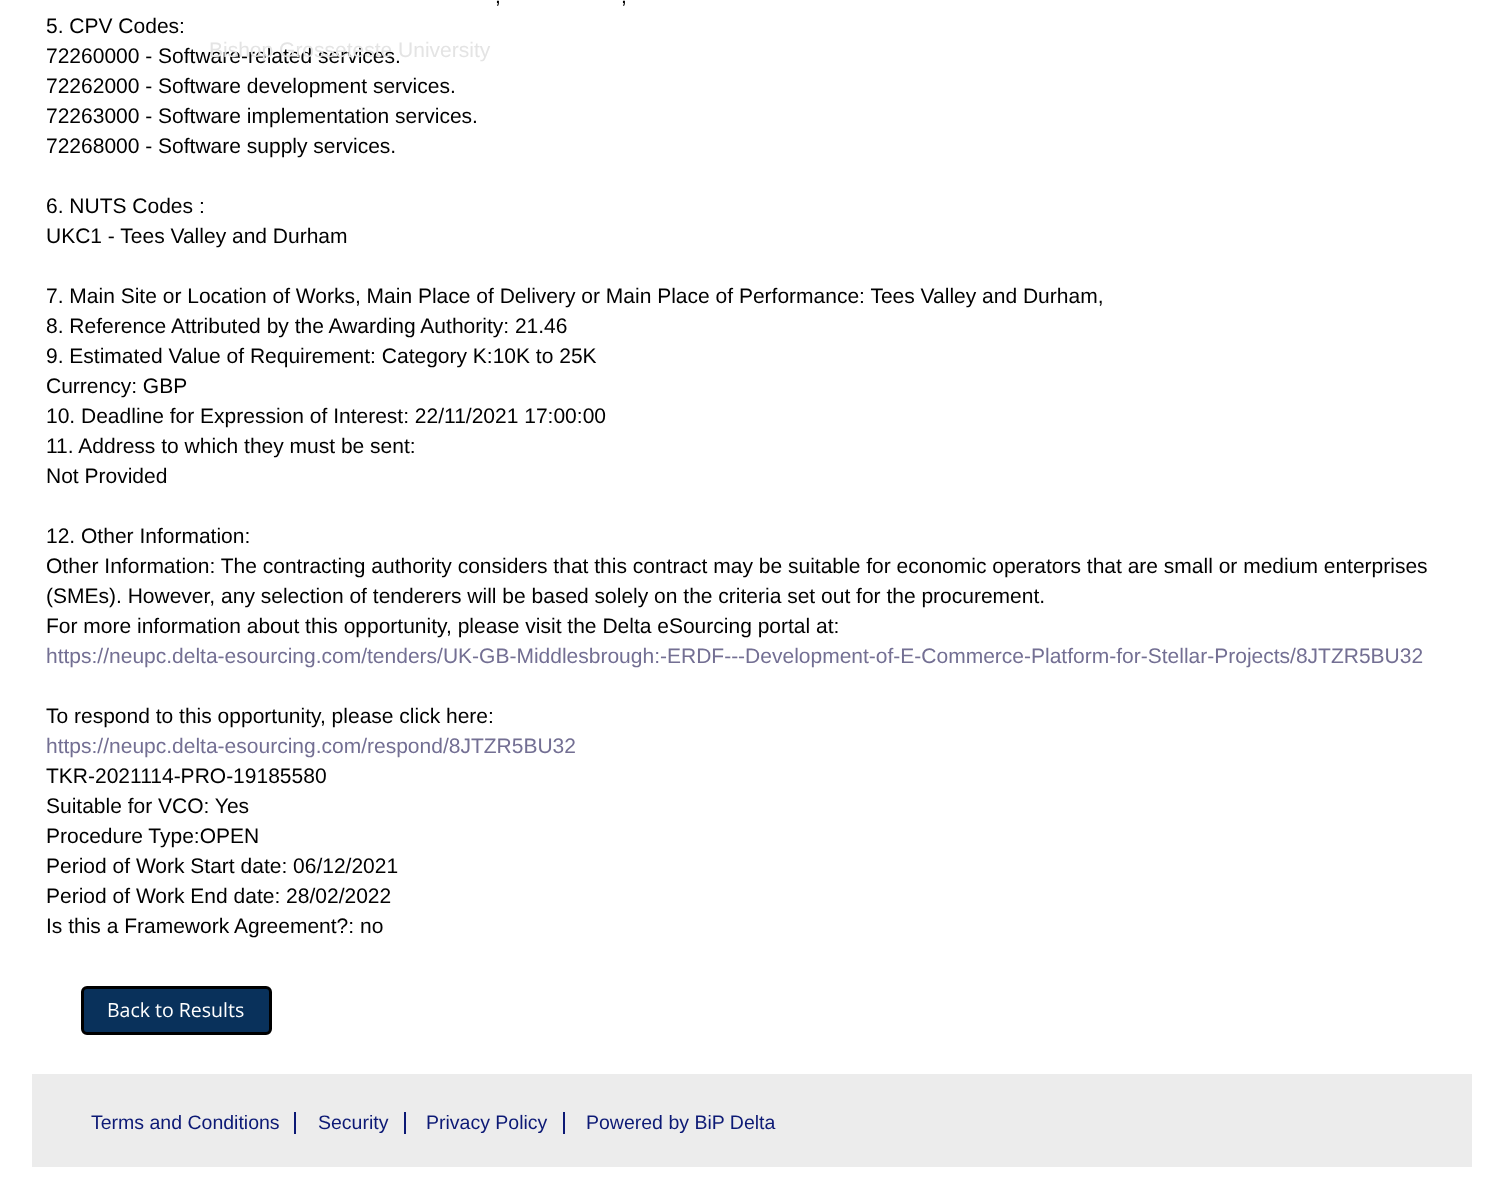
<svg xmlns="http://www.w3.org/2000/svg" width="1501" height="1187">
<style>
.a{font:21px Liberation Sans;fill:#000}
.b{font:21px Liberation Sans;fill:#736f93}
.c{font:19.5px Open Sans;fill:#fff}
.d{font:21px Liberation Sans;fill:#e4e4e4}
.e{font:19.5px Liberation Sans;fill:#0c1975}
</style>
<rect width="100%" height="100%" fill="#fff"/>
<rect fill="#09315b" stroke="#000" stroke-width="3" x="82.5" y="987.5" width="188" height="46" rx="4.5"/>
<path fill="#ececec" d="M32 1074h1440v93H32z"/>
<path fill="#0c1975" d="M294 1112h2v22H294z"/>
<path fill="#0c1975" d="M404 1112h2v22H404z"/>
<path fill="#0c1975" d="M563 1112h2v22H563z"/>
<text class="a" x="495" y="3">,</text>
<text class="a" x="621" y="3">,</text>
<text class="a" x="46" y="33">5. CPV Codes:</text>
<text class="a" x="46" y="63">72260000 - Software-related services.</text>
<text class="a" x="46" y="93">72262000 - Software development services.</text>
<text class="a" x="46" y="123">72263000 - Software implementation services.</text>
<text class="a" x="46" y="153">72268000 - Software supply services.</text>
<text class="a" x="46" y="213">6. NUTS Codes :</text>
<text class="a" x="46" y="243">UKC1 - Tees Valley and Durham</text>
<text class="a" x="46" y="303">7. Main Site or Location of Works, Main Place of Delivery or Main Place of Performance: Tees Valley and Durham,</text>
<text class="a" x="46" y="333">8. Reference Attributed by the Awarding Authority: 21.46</text>
<text class="a" x="46" y="363">9. Estimated Value of Requirement: Category K:10K to 25K</text>
<text class="a" x="46" y="393">Currency: GBP</text>
<text class="a" x="46" y="423">10. Deadline for Expression of Interest: 22/11/2021 17:00:00</text>
<text class="a" x="46" y="453">11. Address to which they must be sent:</text>
<text class="a" x="46" y="483">Not Provided</text>
<text class="a" x="46" y="543">12. Other Information:</text>
<text class="a" x="46" y="573">Other Information: The contracting authority considers that this contract may be suitable for economic operators that are small or medium enterprises</text>
<text class="a" x="46" y="603">(SMEs). However, any selection of tenderers will be based solely on the criteria set out for the procurement.</text>
<text class="a" x="46" y="633">For more information about this opportunity, please visit the Delta eSourcing portal at:</text>
<text class="b" x="46" y="663">https://neupc.delta-esourcing.com/tenders/UK-GB-Middlesbrough:-ERDF---Development-of-E-Commerce-Platform-for-Stellar-Projects/8JTZR5BU32</text>
<text class="a" x="46" y="723">To respond to this opportunity, please click here:</text>
<text class="b" x="46" y="753">https://neupc.delta-esourcing.com/respond/8JTZR5BU32</text>
<text class="a" x="46" y="783">TKR-2021114-PRO-19185580</text>
<text class="a" x="46" y="813">Suitable for VCO: Yes</text>
<text class="a" x="46" y="843">Procedure Type:OPEN</text>
<text class="a" x="46" y="873">Period of Work Start date: 06/12/2021</text>
<text class="a" x="46" y="903">Period of Work End date: 28/02/2022</text>
<text class="a" x="46" y="933">Is this a Framework Agreement?: no</text>
<text class="c" x="107" y="1017">Back to Results</text>
<text class="d" x="209" y="57">Bishop Grosseteste University</text>
<text class="e" x="91" y="1129">Terms and Conditions</text>
<text class="e" x="318" y="1129">Security</text>
<text class="e" x="426" y="1129">Privacy Policy</text>
<text class="e" x="586" y="1129">Powered by BiP Delta</text>
</svg>
